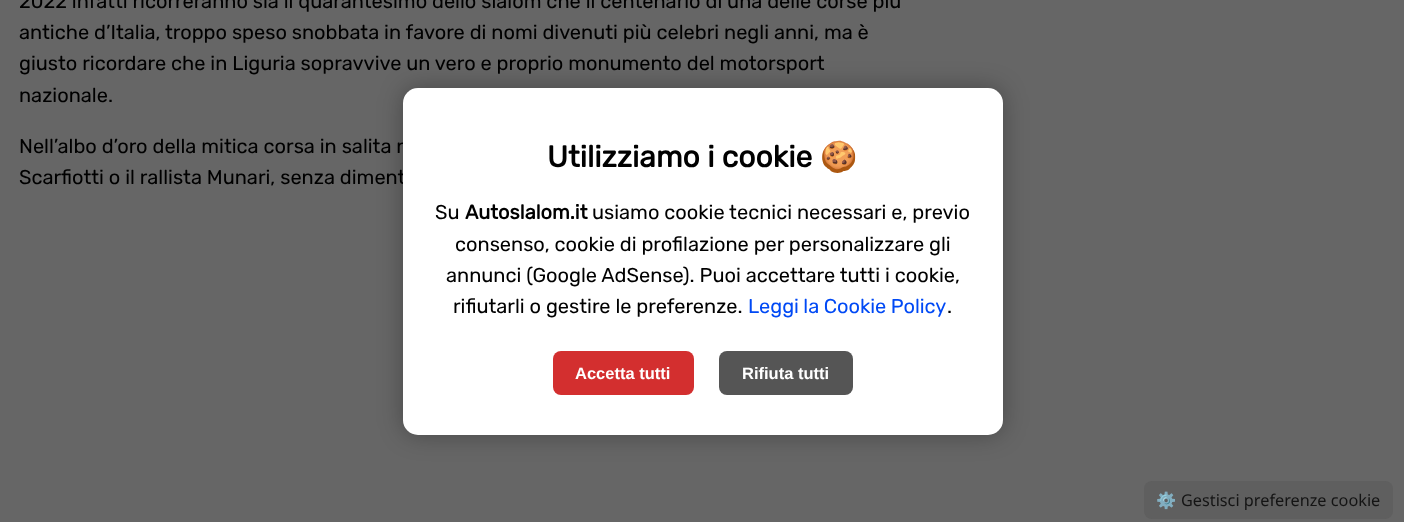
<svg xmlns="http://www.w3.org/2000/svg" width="1404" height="522">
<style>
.a{font:20px Rubik;fill:#000}
.b{font:bold 30px Rubik;fill:#000}
.c{font:bold 30px Noto Color Emoji;fill:#000}
.d{font:bold 20px Rubik;fill:#000}
.e{font:20px Rubik;fill:#0049f5}
.f{font:bold 16.5px Liberation Sans;fill:#fff}
.g{font:16.25px Noto Color Emoji;fill:#141414}
.h{font:16.25px Noto Sans;fill:#141414}
</style>
<rect width="100%" height="100%" fill="#666"/>
<rect fill="#0000004d" filter="blur(12.5px)" x="403" y="88" width="600" height="347" rx="15"/>
<rect fill="#5f5f5f" x="1144" y="481" width="249" height="38" rx="8"/>
<text class="a" x="19" y="8">2022 infatti ricorreranno sia il quarantesimo dello slalom che il centenario di una delle corse più</text>
<text class="a" x="19" y="39">antiche d’Italia, troppo speso snobbata in favore di nomi divenuti più celebri negli anni, ma è</text>
<text class="a" x="19" y="70">giusto ricordare che in Liguria sopravvive un vero e proprio monumento del motorsport</text>
<text class="a" x="19" y="102">nazionale.</text>
<text class="a" x="19" y="153">Nell’albo d’oro della mitica corsa in salita n</text>
<text class="a" x="19" y="184">Scarfiotti o il rallista Munari, senza diment</text>
<rect fill="#fff" x="403" y="88" width="600" height="347" rx="15"/>
<text class="b" x="547" y="167">Utilizziamo i cookie</text>
<text class="c" x="820" y="167">🍪</text>
<text class="a" x="435" y="219">Su</text>
<text class="d" x="465" y="219">Autoslalom.it</text>
<text class="a" x="592" y="219">usiamo cookie tecnici necessari e, previo</text>
<text class="a" x="455" y="251">consenso, cookie di profilazione per personalizzare gli</text>
<text class="a" x="446" y="282">annunci (Google AdSense). Puoi accettare tutti i cookie,</text>
<text class="a" x="453" y="313">rifiutarli o gestire le preferenze.</text>
<text class="e" x="748" y="313" word-spacing="-0.5">Leggi la Cookie Policy</text>
<text class="a" x="947" y="313">.</text>
<rect fill="#d32f2f" x="553" y="351" width="141" height="44" rx="8"/>
<text class="f" x="575" y="379">Accetta tutti</text>
<rect fill="#555" x="719" y="351" width="134" height="44" rx="8"/>
<text class="f" x="742" y="379">Rifiuta tutti</text>
<text class="g" x="1156" y="506">⚙️</text>
<text class="h" x="1181" y="506">Gestisci preferenze cookie</text>
</svg>
